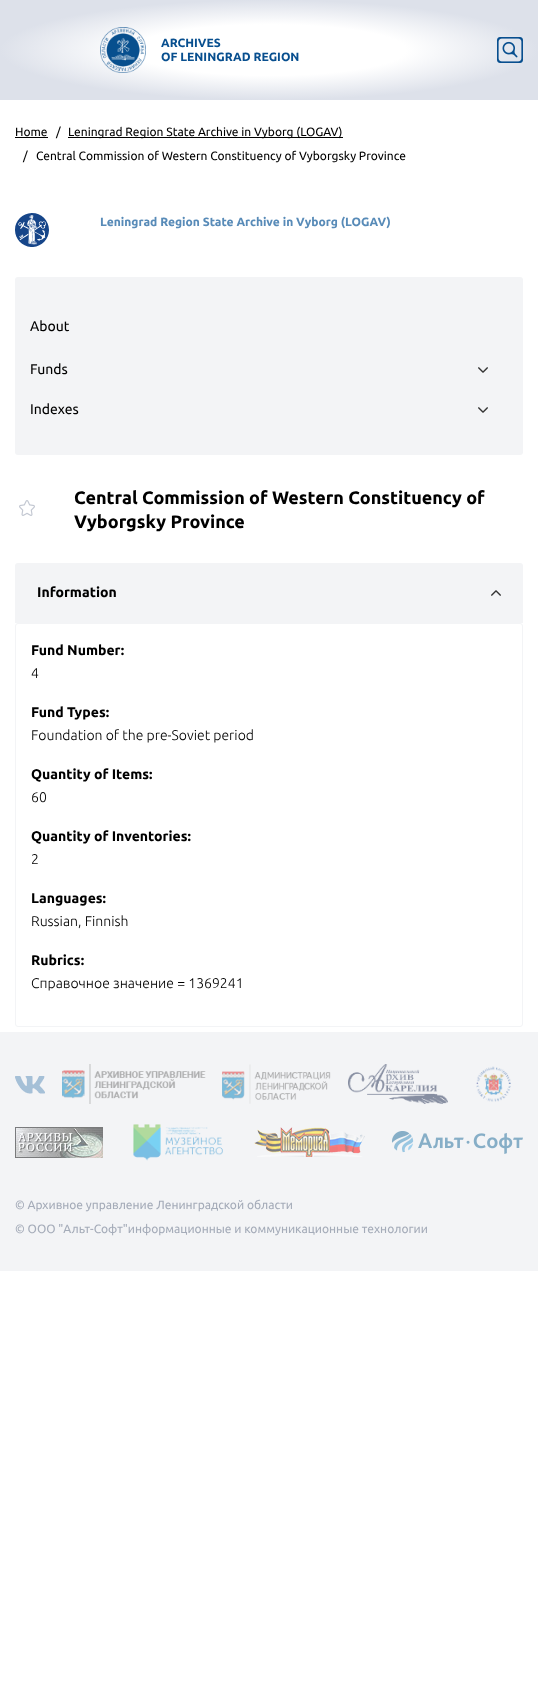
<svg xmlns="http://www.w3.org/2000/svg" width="538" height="1687">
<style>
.a{font:bold 12px Ubuntu;fill:#084f8f}
.b{font:12px Ubuntu;fill:#000}
.c{font:bold 12px Ubuntu;fill:#588bb8}
.d{font:14px Ubuntu;fill:#000}
.e{font:bold 18px Ubuntu;fill:#000}
.f{font:bold 14px Ubuntu;fill:#000}
.g{font:300 14px Ubuntu;fill:#000}
.h{font:12px Ubuntu;fill:#a5acb9}
</style>
<defs>
<radialGradient id="g1" gradientUnits="userSpaceOnUse" cx="0" cy="0" r="1" gradientTransform="matrix(269 0 0 50 269 50)"><stop offset="0.51" stop-color="#fff"/><stop offset="1" stop-color="#dde1ea"/></radialGradient>
</defs>
<rect width="100%" height="100%" fill="#fff"/>
<path fill="url(#g1)" d="M0 0h538v100H0z"/>
<image href="1.png" x="100" y="27" width="46" height="46"/>
<image href="2.png" x="497" y="37" width="26" height="26"/>
<path fill="#000" d="M15 137h33v1H15z"/>
<path fill="#000" d="M68 137h275v1H68z"/>
<image href="3.png" x="15" y="213" width="34" height="34"/>
<rect fill="#f3f4f6" x="15" y="277" width="508" height="178" rx="3"/>
<image href="4.png" x="478" y="367" width="10" height="6"/>
<image href="4.png" x="478" y="407" width="10" height="6"/>
<image href="5.png" x="19" y="500" width="16" height="16"/>
<path fill="#f3f4f6" stroke="#f3f4f6" stroke-width="2" d="M18 564h502c1 0 2 1 2 2v56h-506v-56c0-1 1-2 2-2z"/>
<image href="6.png" x="491" y="590" width="10" height="6"/>
<rect fill="none" stroke="#f3f4f6" x="15.5" y="623.5" width="507" height="403" rx="2.5"/>
<path fill="#f3f4f6" d="M0 1032h538v239H0z"/>
<image href="7.png" x="15" y="1076" width="30" height="18"/>
<image href="8.png" x="62" y="1064" width="144" height="40"/>
<image href="9.png" x="222" y="1064" width="109" height="40"/>
<image href="10.png" x="348" y="1064" width="100" height="40"/>
<image href="11.png" x="476" y="1066" width="35" height="36"/>
<image href="12.png" x="15" y="1127" width="88" height="31"/>
<image href="13.png" x="133" y="1124" width="90" height="37"/>
<image href="14.png" x="254" y="1127" width="111" height="30"/>
<image href="15.png" x="392" y="1131" width="131" height="23"/>
<text class="a" x="161" y="47">ARCHIVES</text>
<text class="a" x="161" y="61">OF LENINGRAD REGION</text>
<text class="b" x="15" y="136">Home</text>
<text class="b" x="56" y="136">/</text>
<text class="b" x="68" y="136">Leningrad Region State Archive in Vyborg (LOGAV)</text>
<text class="b" x="23" y="160">/</text>
<text class="b" x="36" y="160">Central Commission of Western Constituency of Vyborgsky Province</text>
<text class="c" x="100" y="226">Leningrad Region State Archive in Vyborg (LOGAV)</text>
<text class="d" x="30" y="331">About</text>
<text class="d" x="30" y="374">Funds</text>
<text class="d" x="30" y="414">Indexes</text>
<text class="e" x="74" y="504">Central Commission of Western Constituency of</text>
<text class="e" x="74" y="528">Vyborgsky Province</text>
<text class="f" x="37" y="597">Information</text>
<text class="f" x="31" y="655">Fund Number:</text>
<text class="g" x="31" y="678">4</text>
<text class="f" x="31" y="717">Fund Types:</text>
<text class="g" x="31" y="740">Foundation of the pre-Soviet period</text>
<text class="f" x="31" y="779">Quantity of Items:</text>
<text class="g" x="31" y="802">60</text>
<text class="f" x="31" y="841">Quantity of Inventories:</text>
<text class="g" x="31" y="864">2</text>
<text class="f" x="31" y="903">Languages:</text>
<text class="g" x="31" y="926">Russian, Finnish</text>
<text class="f" x="31" y="965">Rubrics:</text>
<text class="g" x="31" y="988">Справочное значение = 1369241</text>
<text class="h" x="15" y="1209">© Архивное управление Ленинградской области</text>
<text class="h" x="15" y="1233">© ООО "Альт-Софт"информационные и коммуникационные технологии</text>
</svg>
